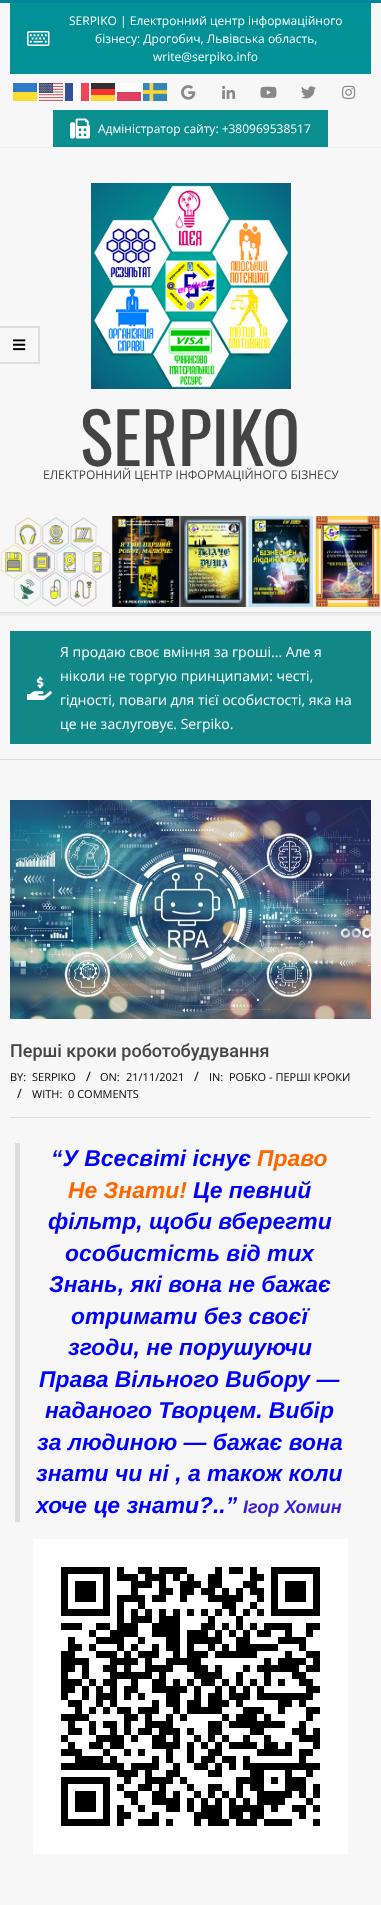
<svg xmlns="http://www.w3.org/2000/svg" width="381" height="1905">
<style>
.a{font:12px Open Sans;fill:#fff}
.b{font:70px Oswald;fill:#444}
.c{font:12px Open Sans;fill:#444}
.d{font:14px Open Sans;fill:#fff}
.e{font:500 18px Roboto;fill:#444}
.f{font:11px Open Sans;fill:#000}
.g{font:13px Open Sans;fill:#000}
.h{font:italic bold 22.9px Liberation Sans;fill:#00f}
.i{font:italic bold 22.9px Liberation Sans;fill:#f60}
.j{font:italic bold 18px Liberation Sans;fill:#371cdd}
</style>
<rect width="100%" height="100%" fill="#f7f7f7"/>
<path fill="#00869b" d="M0 0h381v3H0z"/>
<path fill="#eee" d="M0 147h381v1H0z"/>
<path fill="#019196" d="M10 3h361v71H10z"/>
<image href="1.png" x="27" y="31" width="23" height="15"/>
<path fill="#317ac7" d="M13 83h24v9H13z"/>
<image href="2.png" x="39" y="83" width="24" height="18"/>
<path fill="#315097" d="M65 83h8v18H65z"/>
<path fill="#fdfdfd" d="M73 83h8v18H73z"/>
<path fill="#f44558" d="M81 83h8v18H81z"/>
<path fill="#313131" d="M91 83h24v6H91z"/>
<path fill="#fdfdfd" d="M117 83h24v9H117z"/>
<image href="3.png" x="143" y="83" width="24" height="18"/>
<path fill="#fddc31" d="M13 92h24v9H13z"/>
<path fill="#fd3131" d="M91 89h24v6H91z"/>
<path fill="#e14161" d="M117 92h24v9H117z"/>
<path fill="#fdd531" d="M91 95h24v6H91z"/>
<image href="4.png" x="181" y="85" width="15" height="15"/>
<image href="5.png" x="222" y="85" width="14" height="14"/>
<image href="6.png" x="260" y="86" width="17" height="12"/>
<image href="7.png" x="301" y="86" width="15" height="13"/>
<image href="8.png" x="342" y="85" width="14" height="14"/>
<path fill="#0b8e8e" d="M53 110h275v37H53z"/>
<image href="9.png" x="70" y="118" width="20" height="21"/>
<path fill="#eee" d="M0 613h381v3H0z"/>
<path fill="#dedede" d="M0 326h40l-2 2h-38z"/>
<path fill="#0000001a" d="M40 326v38l-2-2v-34z"/>
<path fill="#0000001a" d="M40 364h-40v-2h38z"/>
<image href="10.png" x="13" y="339" width="13" height="12"/>
<path fill="#ddd" d="M0 612h381v1H0z"/>
<image href="11.png" x="91" y="183" width="200" height="206"/>
<image href="12.png" x="0" y="516" width="381" height="91"/>
<path fill="#ddd" d="M0 759h381v1H0z"/>
<path fill="#118787" d="M10 631h361v113H10z"/>
<image href="13.png" x="27" y="676" width="25" height="24"/>
<image href="14.png" x="10" y="800" width="361" height="219"/>
<path fill="#ddd" d="M10 1117h361v1H10z"/>
<path fill="#ddd" d="M15 1143h5v379H15z"/>
<image href="15.png" x="33" y="1539" width="315" height="315"/>
<text class="a" x="69" y="25">SERPIKO | Електронний центр інформаційного</text>
<text class="a" x="95" y="43">бізнесу: Дрогобич, Львівська область,</text>
<text class="a" x="153" y="61">write@serpiko.info</text>
<text class="a" x="98" y="133">Адміністратор сайту: +380969538517</text>
<text class="b" x="80" y="466">SERPIKO</text>
<text class="c" x="43" y="479">ЕЛЕКТРОННИЙ ЦЕНТР ІНФОРМАЦІЙНОГО БІЗНЕСУ</text>
<text class="d" x="60" y="657">Я продаю своє вміння за гроші... Але я</text>
<text class="d" x="60" y="681">ніколи не торгую принципами: честі,</text>
<text class="d" x="60" y="705">гідності, поваги для тієї особистості, яка на</text>
<text class="d" x="60" y="729">це не заслуговує. Serpiko.</text>
<text class="e" x="10" y="1057">Перші кроки роботобудування</text>
<text class="f" x="10" y="1081">BY:</text>
<text class="f" x="32" y="1081">SERPIKO</text>
<text class="g" x="86" y="1081">/</text>
<text class="f" x="100" y="1081">ON:</text>
<text class="f" x="126" y="1081">21/11/2021</text>
<text class="g" x="194" y="1081">/</text>
<text class="f" x="209" y="1081">IN:</text>
<text class="f" x="229" y="1081">РОБКО - ПЕРШІ КРОКИ</text>
<text class="g" x="17" y="1098">/</text>
<text class="f" x="32" y="1098">WITH:</text>
<text class="f" x="68" y="1098">0 COMMENTS</text>
<text class="h" x="51" y="1166">“У Всесвіті існує</text>
<text class="i" x="257" y="1166">Право</text>
<text class="i" x="68" y="1198">Не Знати!</text>
<text class="h" x="193" y="1198">Це певний</text>
<text class="h" x="48" y="1229">фільтр, щоби вберегти</text>
<text class="h" x="65" y="1261">особистість від тих</text>
<text class="h" x="49" y="1292">Знань, які вона не бажає</text>
<text class="h" x="71" y="1324">отримати без своєї</text>
<text class="h" x="68" y="1355">згоди, не порушуючи</text>
<text class="h" x="39" y="1387">Права Вільного Вибору —</text>
<text class="h" x="45" y="1418">наданого Творцем. Вибір</text>
<text class="h" x="37" y="1450">за людиною — бажає вона</text>
<text class="h" x="36" y="1481">знати чи ні , а також коли</text>
<text class="h" x="36" y="1513">хоче це знати?..”</text>
<text class="j" x="243" y="1513">Ігор Хомин</text>
</svg>
